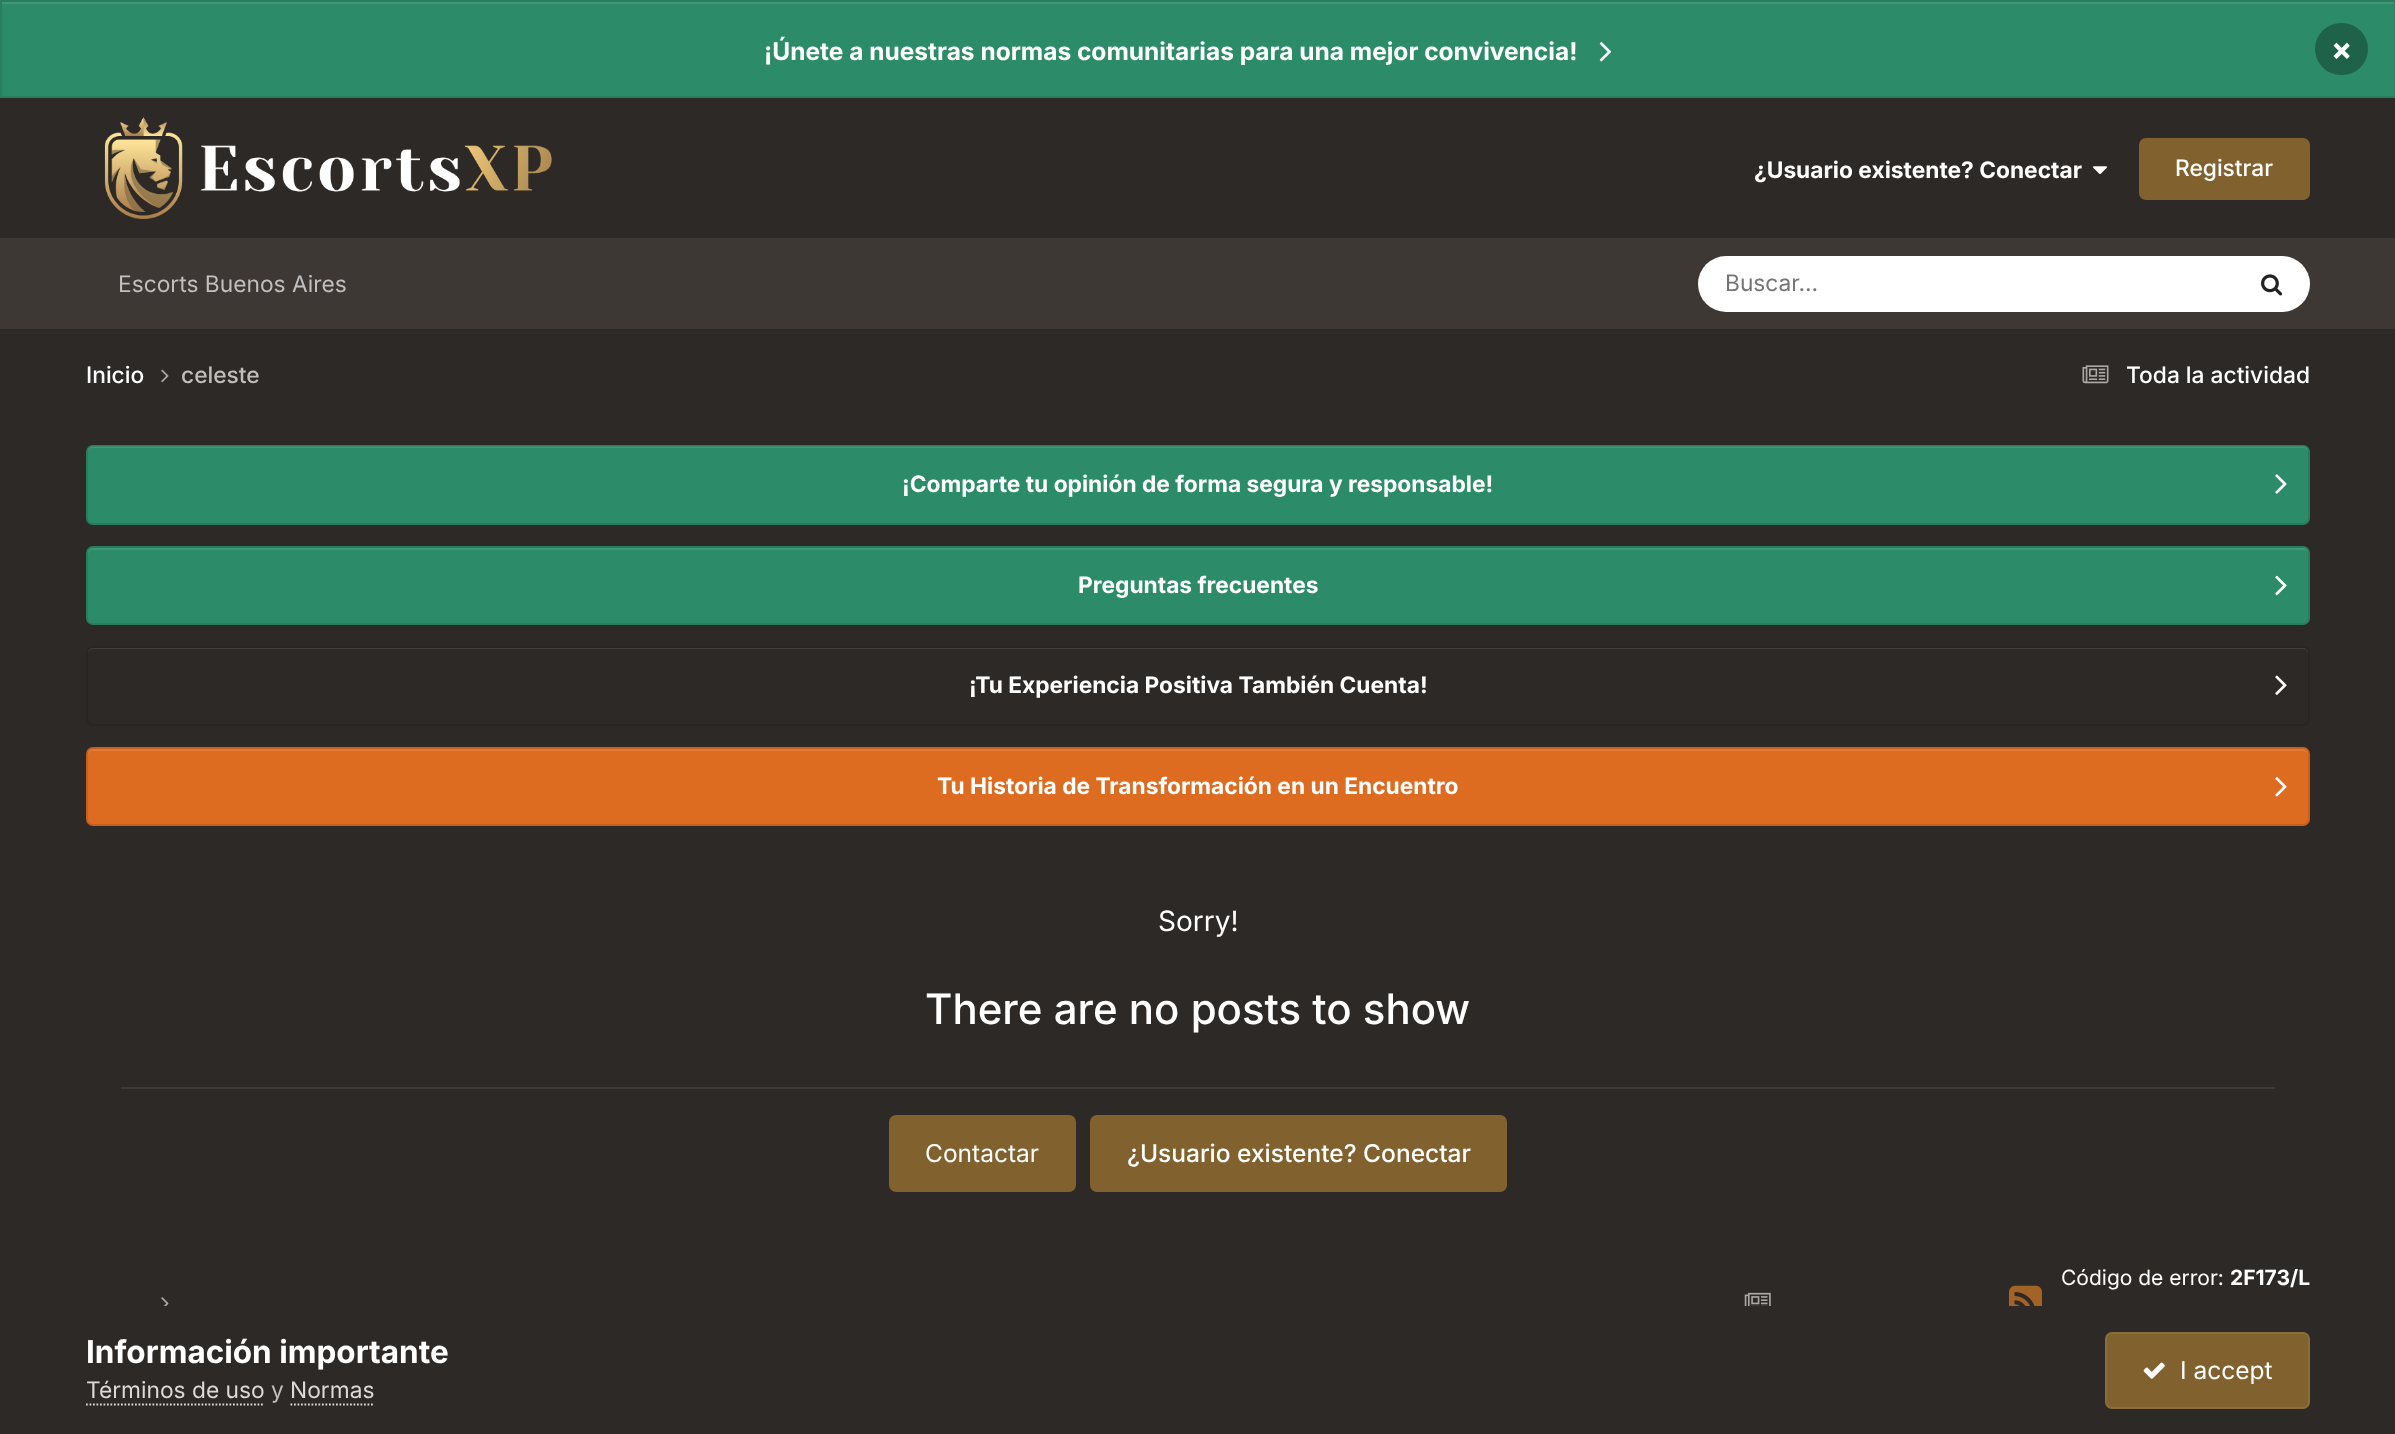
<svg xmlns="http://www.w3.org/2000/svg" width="2395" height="1434">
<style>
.a{font:bold 24.5px Inter;fill:#fff}
.b{font:bold 31.5px Inter;fill:#fff}
.c{font:bold 22.75px Inter;fill:#fff}
.d{font:500 22.75px Inter;fill:#fff}
.e{font:22.75px Inter;fill:#c0bfbe}
.f{font:22.75px Inter;fill:#757575}
.g{font:500 22.75px Inter;fill:#c0bfbe}
.h{font:28px Inter;fill:#fff}
.i{font:500 42px Inter;fill:#fff}
.j{font:24.5px Inter;fill:#fff}
.k{font:500 24.5px Inter;fill:#fff}
.l{font:21px Inter;fill:#fff}
.m{font:bold 21px Inter;fill:#fff}
.n{font:22.75px Inter;fill:#dadada}
</style>
<rect width="100%" height="100%" fill="#2d2926"/>
<path fill="#2c8c69" d="M2 4h2392v92H2z"/>
<path fill="#419878" d="M2 2h2392v2H2z"/>
<path fill="none" stroke="#287e5f" stroke-width="2" d="M1 1h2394v96H1z"/>
<image href="1.png" x="1599" y="42" width="13" height="20"/>
<rect fill="#1f624a" x="2315" y="23" width="53" height="52" rx="26"/>
<image href="2.png" x="104" y="117" width="448" height="102"/>
<image href="3.png" x="2093" y="166" width="14" height="8"/>
<rect fill="#81622e" x="2139" y="138" width="171" height="62" rx="7"/>
<path fill="#3d3834" d="M0 238h2395v91H0z"/>
<rect fill="#fff" x="1698" y="256" width="612" height="56" rx="28"/>
<image href="4.png" x="2261" y="274" width="22" height="22"/>
<image href="5.png" x="161" y="369" width="8" height="14"/>
<image href="6.png" x="2082" y="365" width="27" height="19"/>
<rect fill="#2c8c69" x="86" y="445" width="2224" height="80" rx="7"/>
<path fill="#419878" d="M93 448h2210c3 0 5 2 5 5v-2c0-3-2-5-5-5h-2210c-3 0-5 2-5 5v2c0-3 2-5 5-5z"/>
<rect fill="none" stroke="#0000001a" stroke-width="2" x="87" y="446" width="2222" height="78" rx="6"/>
<image href="7.png" x="2275" y="474" width="12" height="20"/>
<rect fill="#2c8c69" x="86" y="546" width="2224" height="79" rx="7"/>
<path fill="#419878" d="M93 550h2210c3 0 5 2 5 5v-2c0-3-2-5-5-5h-2210c-3 0-5 2-5 5v2c0-3 2-5 5-5z"/>
<rect fill="none" stroke="#0000001a" stroke-width="2" x="87" y="547" width="2222" height="77" rx="6"/>
<image href="8.png" x="2275" y="575" width="12" height="21"/>
<path fill="#423e3c" d="M93 649h2210c3 0 5 3 5 5v-1c0-3-2-5-5-5h-2210c-3 0-5 2-5 5v1c0-2 2-5 5-5z"/>
<rect fill="none" stroke="#0000001a" stroke-width="2" x="87" y="647" width="2222" height="78" rx="6"/>
<image href="9.png" x="2275" y="675" width="12" height="20"/>
<rect fill="#dd6b20" x="86" y="747" width="2224" height="79" rx="7"/>
<path fill="#e07a36" d="M93 751h2210c3 0 5 2 5 5v-2c0-3-2-5-5-5h-2210c-3 0-5 2-5 5v2c0-3 2-5 5-5z"/>
<rect fill="none" stroke="#0000001a" stroke-width="2" x="87" y="748" width="2222" height="77" rx="6"/>
<image href="10.png" x="2275" y="777" width="12" height="20"/>
<path fill="#3e3a37" d="M121 1087h2154v2H121z"/>
<rect fill="#81622e" x="889" y="1115" width="187" height="77" rx="7"/>
<rect fill="#81622e" x="1090" y="1115" width="417" height="77" rx="7"/>
<image href="11.png" x="161" y="1297" width="8" height="9"/>
<image href="12.png" x="1744" y="1292" width="27" height="14"/>
<image href="13.png" x="2009" y="1285" width="33" height="21"/>
<path fill="none" stroke="#dadada" stroke-width="1.8" stroke-dasharray="1.75 1.75" d="M86 1404.5h178"/>
<path fill="none" stroke="#dadada" stroke-width="1.8" stroke-dasharray="1.75 1.75" d="M290.5 1404.5h84"/>
<rect fill="#81622e" x="2105" y="1332" width="205" height="77" rx="7"/>
<rect fill="none" stroke="#ffffff12" stroke-width="2" x="2106" y="1333" width="203" height="75" rx="6"/>
<image href="14.png" x="2143" y="1362" width="22" height="17"/>
<text class="a" x="764" y="60">¡Únete a nuestras normas comunitarias para una mejor convivencia!</text>
<text class="b" x="2331" y="60">×</text>
<text class="c" x="1754" y="178">¿Usuario existente? Conectar</text>
<text class="d" x="2175" y="176">Registrar</text>
<text class="e" x="118" y="292">Escorts Buenos Aires</text>
<text class="f" x="1725" y="291">Buscar...</text>
<text class="d" x="86" y="383">Inicio</text>
<text class="g" x="181" y="383">celeste</text>
<text class="d" x="2126" y="383">Toda la actividad</text>
<text class="c" x="902" y="492">¡Comparte tu opinión de forma segura y responsable!</text>
<text class="c" x="1078" y="593">Preguntas frecuentes</text>
<text class="c" x="969" y="693">¡Tu Experiencia Positiva También Cuenta!</text>
<text class="c" x="937" y="794">Tu Historia de Transformación en un Encuentro</text>
<text class="h" x="1158" y="931">Sorry!</text>
<text class="i" x="925" y="1024">There are no posts to show</text>
<text class="j" x="925" y="1162">Contactar</text>
<text class="k" x="1127" y="1162">¿Usuario existente? Conectar</text>
<text class="l" x="2061" y="1285">Código de error:</text>
<text class="m" x="2230" y="1285">2F173/L</text>
<text class="b" x="86" y="1363">Información importante</text>
<text class="n" x="86" y="1398">Términos de uso</text>
<text class="e" x="271" y="1398">y</text>
<text class="n" x="290" y="1398">Normas</text>
<text class="j" x="2180" y="1379">I accept</text>
</svg>
